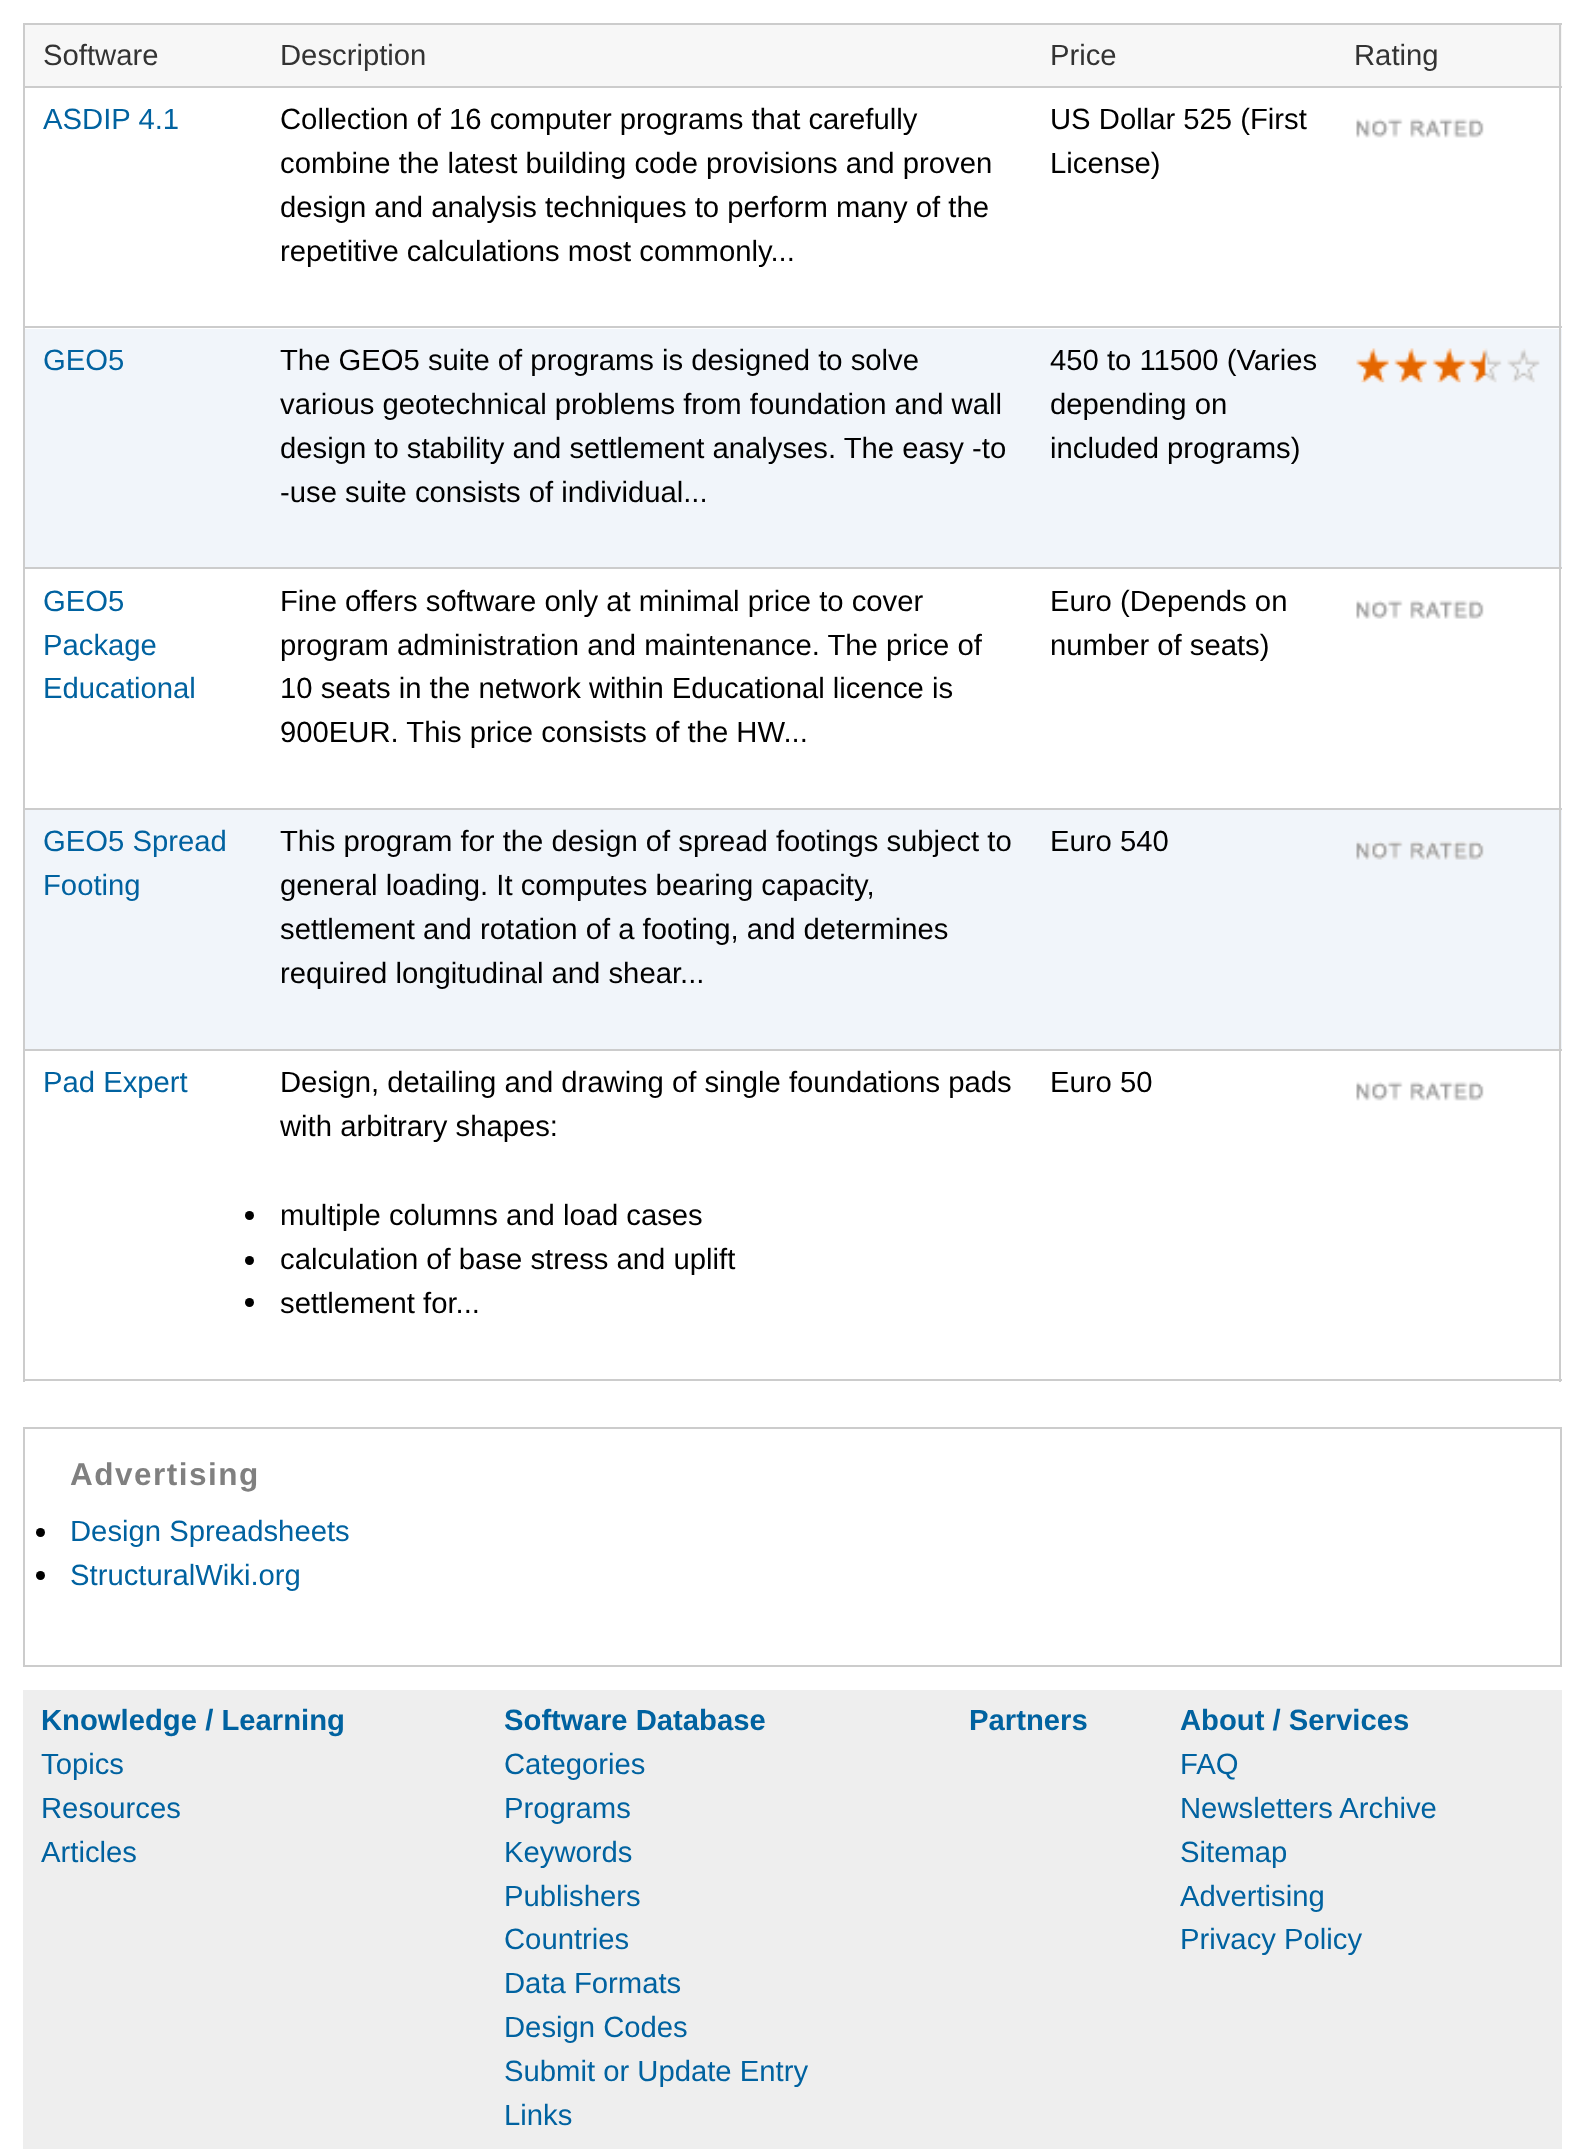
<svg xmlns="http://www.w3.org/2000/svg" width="1583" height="2149">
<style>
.a{font:29.25px Liberation Sans;fill:#333}
.b{font:29.25px Liberation Sans;fill:#0062a0}
.c{font:29.25px Liberation Sans;fill:#000}
.d{font:bold 31.5px Liberation Sans;letter-spacing:1.5px;fill:#808080}
.e{font:bold 29.25px Liberation Sans;fill:#0062a0}
</style>
<rect width="100%" height="100%" fill="#fff"/>
<path fill="#ccc" d="M23 23h1539v2H23z"/>
<path fill="#f7f7f7" d="M25 25h1537v61H25z"/>
<path fill="#f1f5fa" d="M25 329h1537v238H25z"/>
<path fill="#f1f5fa" d="M25 810h1537v239H25z"/>
<path fill="#ccc" d="M1559 23h2v1359H1559z"/>
<path fill="#ccc" d="M23 1379h1539v2H23z"/>
<path fill="#ccc" d="M23 23h2v1359H23z"/>
<path fill="#ccc" d="M23 86h1539v2H23z"/>
<path fill="#ccc" d="M23 326h1539v2H23z"/>
<image href="1.png" x="1356" y="118" width="128" height="20"/>
<path fill="#ccc" d="M23 567h1539v2H23z"/>
<image href="2.png" x="1356" y="348" width="184" height="35"/>
<path fill="#ccc" d="M23 808h1539v2H23z"/>
<image href="3.png" x="1356" y="600" width="128" height="19"/>
<path fill="#ccc" d="M23 1049h1539v2H23z"/>
<image href="4.png" x="1356" y="841" width="128" height="19"/>
<circle fill="#000" cx="249.5" cy="1215.5" r="4.5"/>
<circle fill="#000" cx="249.5" cy="1260.5" r="4.5"/>
<circle fill="#000" cx="249.5" cy="1302.5" r="4.5"/>
<image href="1.png" x="1356" y="1081" width="128" height="20"/>
<path fill="none" stroke="#ccc" stroke-width="2" d="M24 1428h1537v238H24z"/>
<circle fill="#000" cx="40.5" cy="1532.5" r="4.5"/>
<circle fill="#000" cx="40.5" cy="1575.5" r="4.5"/>
<path fill="#eee" d="M23 1690h1539v459H23z"/>
<text class="a" x="43" y="65">Software</text>
<text class="a" x="280" y="65">Description</text>
<text class="a" x="1050" y="65">Price</text>
<text class="a" x="1354" y="65">Rating</text>
<text class="b" x="43" y="129">ASDIP 4.1</text>
<text class="c" x="280" y="129">Collection of 16 computer programs that carefully</text>
<text class="c" x="280" y="173">combine the latest building code provisions and proven</text>
<text class="c" x="280" y="217">design and analysis techniques to perform many of the</text>
<text class="c" x="280" y="261">repetitive calculations most commonly...</text>
<text class="c" x="1050" y="129">US Dollar 525 (First</text>
<text class="c" x="1050" y="173">License)</text>
<text class="b" x="43" y="370">GEO5</text>
<text class="c" x="280" y="370">The GEO5 suite of programs is designed to solve</text>
<text class="c" x="280" y="414">various geotechnical problems from foundation and wall</text>
<text class="c" x="280" y="458">design to stability and settlement analyses. The easy -to</text>
<text class="c" x="280" y="502">-use suite consists of individual...</text>
<text class="c" x="1050" y="370">450 to 11500 (Varies</text>
<text class="c" x="1050" y="414">depending on</text>
<text class="c" x="1050" y="458">included programs)</text>
<text class="b" x="43" y="611">GEO5</text>
<text class="b" x="43" y="655">Package</text>
<text class="b" x="43" y="698">Educational</text>
<text class="c" x="280" y="611">Fine offers software only at minimal price to cover</text>
<text class="c" x="280" y="655">program administration and maintenance. The price of</text>
<text class="c" x="280" y="698">10 seats in the network within Educational licence is</text>
<text class="c" x="280" y="742">900EUR. This price consists of the HW...</text>
<text class="c" x="1050" y="611">Euro (Depends on</text>
<text class="c" x="1050" y="655">number of seats)</text>
<text class="b" x="43" y="851">GEO5 Spread</text>
<text class="b" x="43" y="895">Footing</text>
<text class="c" x="280" y="851">This program for the design of spread footings subject to</text>
<text class="c" x="280" y="895">general loading. It computes bearing capacity,</text>
<text class="c" x="280" y="939">settlement and rotation of a footing, and determines</text>
<text class="c" x="280" y="983">required longitudinal and shear...</text>
<text class="c" x="1050" y="851">Euro 540</text>
<text class="b" x="43" y="1092">Pad Expert</text>
<text class="c" x="280" y="1092">Design, detailing and drawing of single foundations pads</text>
<text class="c" x="280" y="1136">with arbitrary shapes:</text>
<text class="c" x="280" y="1225">multiple columns and load cases</text>
<text class="c" x="280" y="1269">calculation of base stress and uplift</text>
<text class="c" x="280" y="1313">settlement for...</text>
<text class="c" x="1050" y="1092">Euro 50</text>
<text class="d" x="70" y="1485">Advertising</text>
<text class="b" x="70" y="1541">Design Spreadsheets</text>
<text class="b" x="70" y="1585">StructuralWiki.org</text>
<text class="e" x="41" y="1730">Knowledge / Learning</text>
<text class="b" x="41" y="1774">Topics</text>
<text class="b" x="41" y="1818">Resources</text>
<text class="b" x="41" y="1862">Articles</text>
<text class="e" x="504" y="1730">Software Database</text>
<text class="b" x="504" y="1774">Categories</text>
<text class="b" x="504" y="1818">Programs</text>
<text class="b" x="504" y="1862">Keywords</text>
<text class="b" x="504" y="1906">Publishers</text>
<text class="b" x="504" y="1949">Countries</text>
<text class="b" x="504" y="1993">Data Formats</text>
<text class="b" x="504" y="2037">Design Codes</text>
<text class="b" x="504" y="2081">Submit or Update Entry</text>
<text class="b" x="504" y="2125">Links</text>
<text class="e" x="969" y="1730">Partners</text>
<text class="e" x="1180" y="1730">About / Services</text>
<text class="b" x="1180" y="1774">FAQ</text>
<text class="b" x="1180" y="1818">Newsletters Archive</text>
<text class="b" x="1180" y="1862">Sitemap</text>
<text class="b" x="1180" y="1906">Advertising</text>
<text class="b" x="1180" y="1949">Privacy Policy</text>
</svg>
